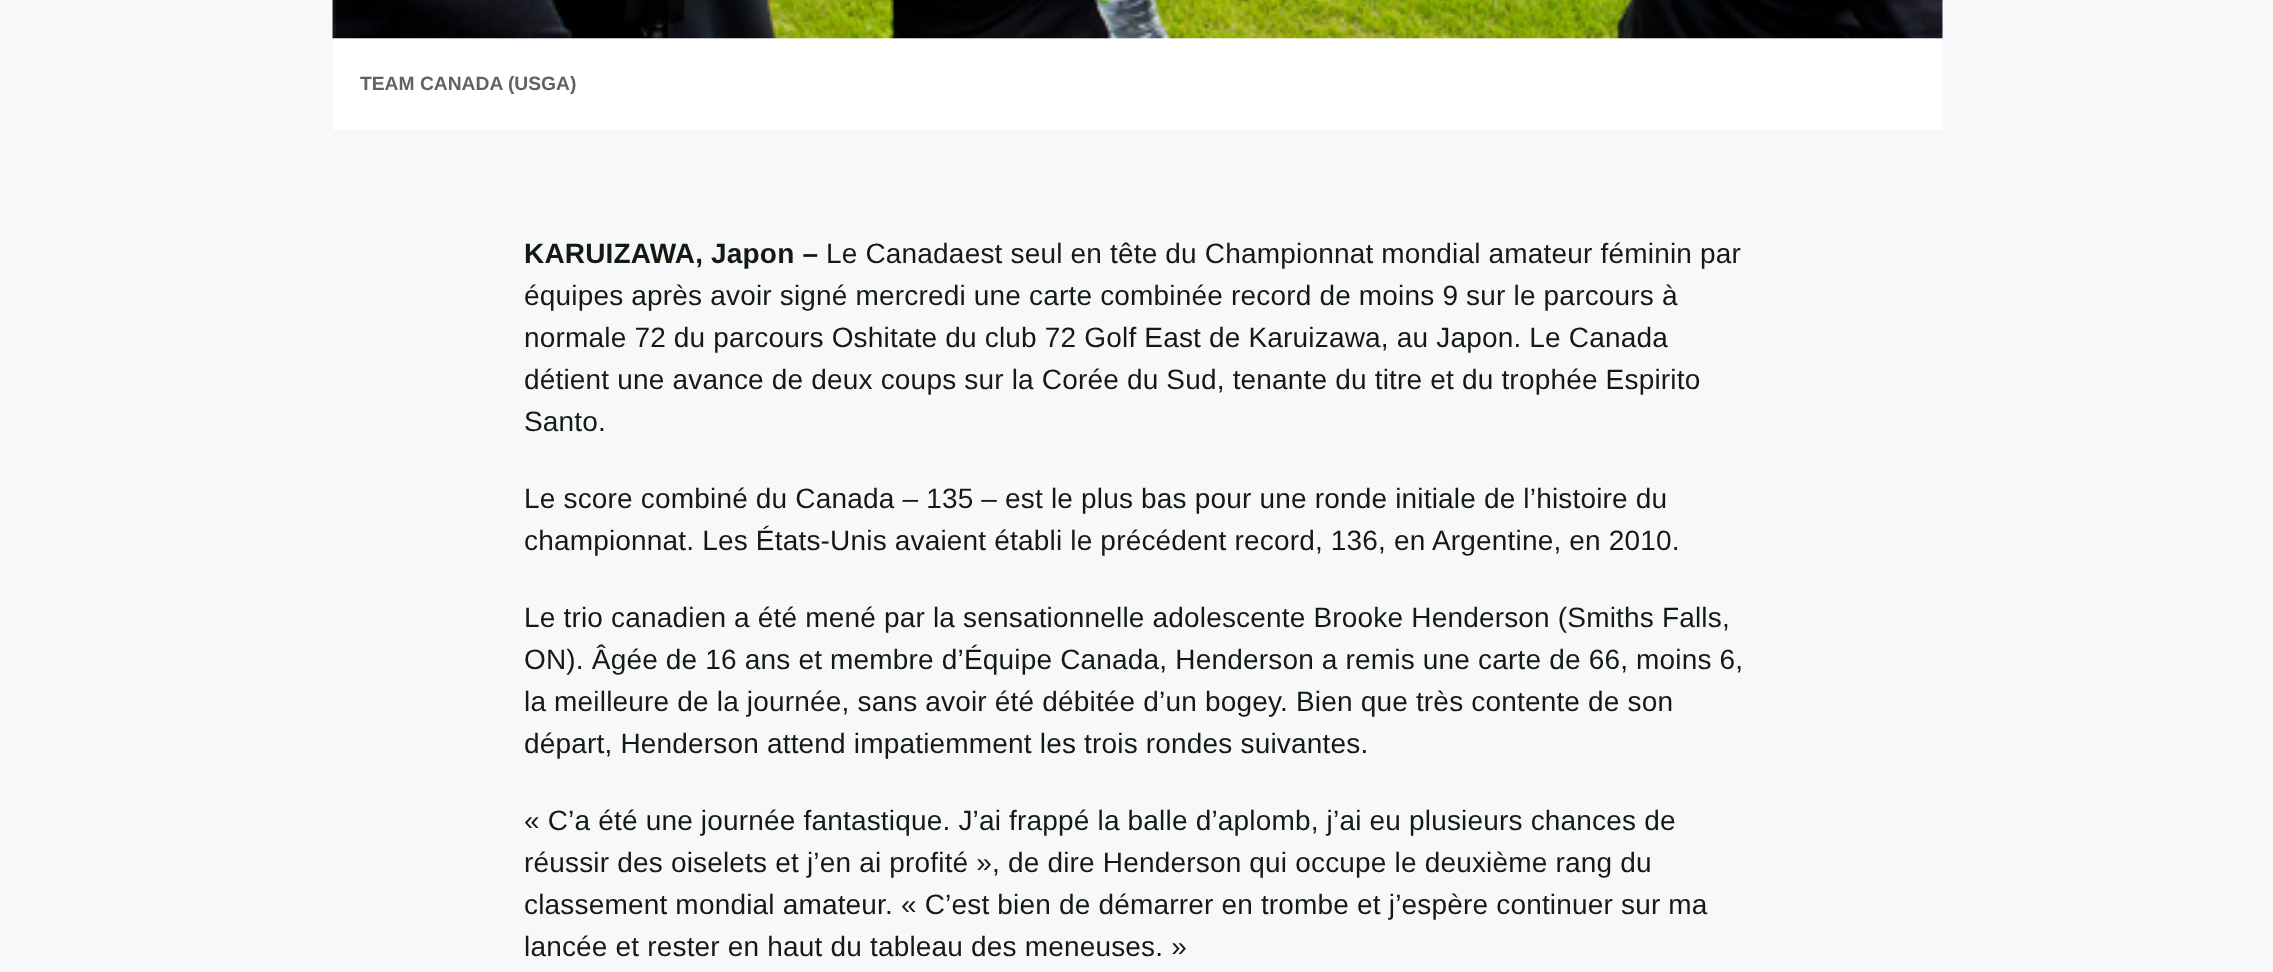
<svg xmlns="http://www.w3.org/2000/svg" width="2273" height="972">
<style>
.a{font:bold 19.25px Liberation Sans;fill:#626262}
.b{font:bold 28px Liberation Sans;letter-spacing:0.18px;fill:#121b10}
.c{font:28px Liberation Sans;letter-spacing:0.18px;fill:#121b10}
</style>
<rect width="100%" height="100%" fill="#f8f8fb"/>
<image href="1.png" x="332" y="0" width="1611" height="39"/>
<path fill="#fff" d="M333 39h1610v91H333z"/>
<text class="a" x="360" y="90">TEAM CANADA (USGA)</text>
<text class="b" x="524" y="263">KARUIZAWA, Japon –</text>
<text class="c" x="826" y="263">Le Canadaest seul en tête du Championnat mondial amateur féminin par</text>
<text class="c" x="524" y="305">équipes après avoir signé mercredi une carte combinée record de moins 9 sur le parcours à</text>
<text class="c" x="524" y="347">normale 72 du parcours Oshitate du club 72 Golf East de Karuizawa, au Japon. Le Canada</text>
<text class="c" x="524" y="389">détient une avance de deux coups sur la Corée du Sud, tenante du titre et du trophée Espirito</text>
<text class="c" x="524" y="431">Santo.</text>
<text class="c" x="524" y="508">Le score combiné du Canada – 135 – est le plus bas pour une ronde initiale de l’histoire du</text>
<text class="c" x="524" y="550">championnat. Les États-Unis avaient établi le précédent record, 136, en Argentine, en 2010.</text>
<text class="c" x="524" y="627">Le trio canadien a été mené par la sensationnelle adolescente Brooke Henderson (Smiths Falls,</text>
<text class="c" x="524" y="669">ON). Âgée de 16 ans et membre d’Équipe Canada, Henderson a remis une carte de 66, moins 6,</text>
<text class="c" x="524" y="711">la meilleure de la journée, sans avoir été débitée d’un bogey. Bien que très contente de son</text>
<text class="c" x="524" y="753">départ, Henderson attend impatiemment les trois rondes suivantes.</text>
<text class="c" x="524" y="830">« C’a été une journée fantastique. J’ai frappé la balle d’aplomb, j’ai eu plusieurs chances de</text>
<text class="c" x="524" y="872">réussir des oiselets et j’en ai profité », de dire Henderson qui occupe le deuxième rang du</text>
<text class="c" x="524" y="914">classement mondial amateur. « C’est bien de démarrer en trombe et j’espère continuer sur ma</text>
<text class="c" x="524" y="956">lancée et rester en haut du tableau des meneuses. »</text>
</svg>
